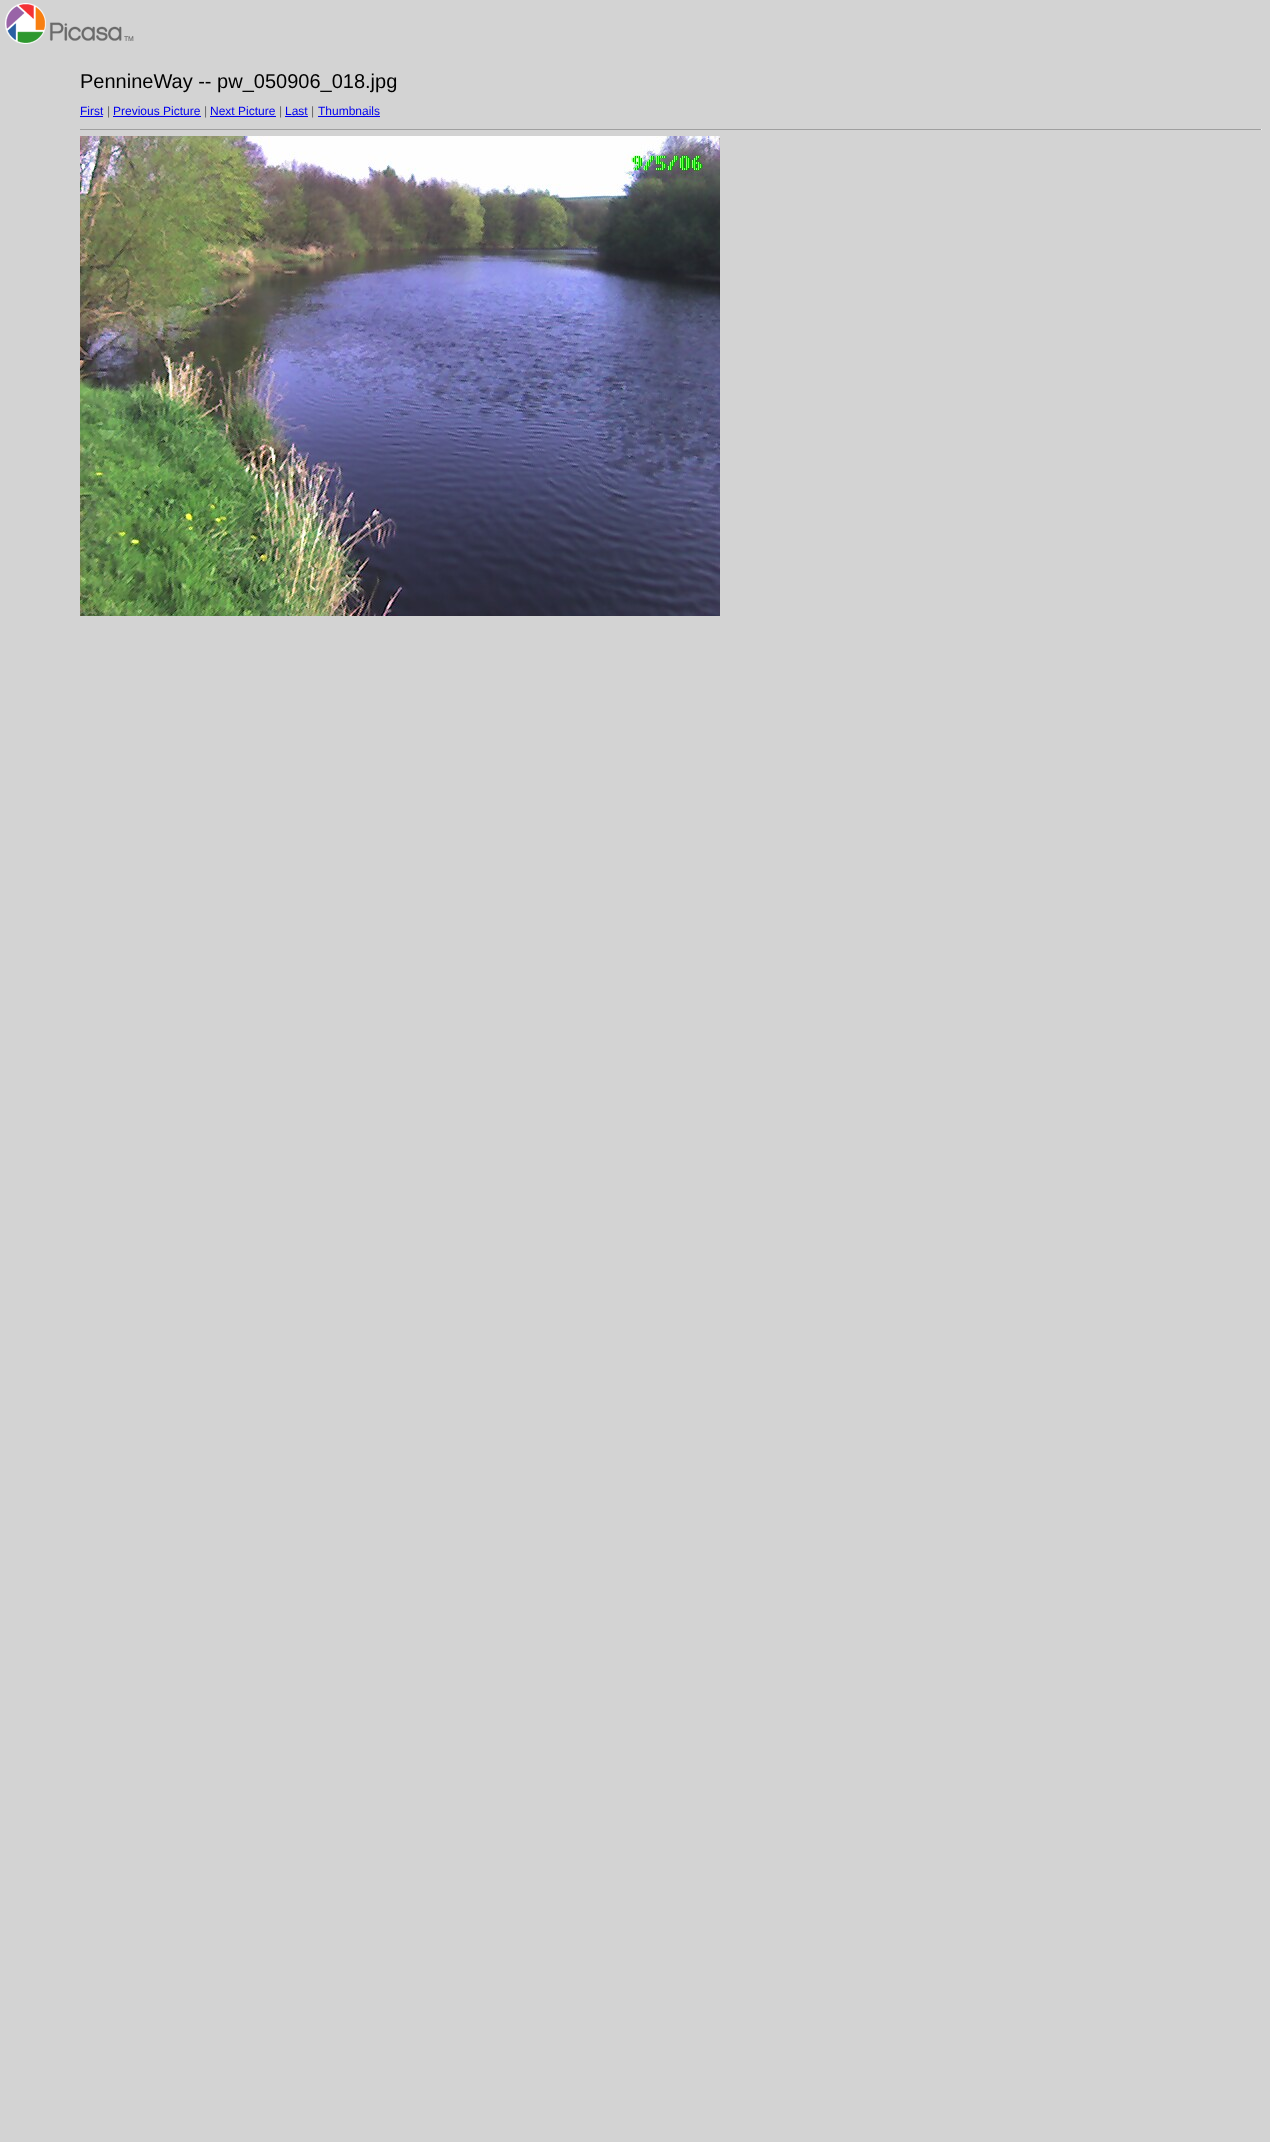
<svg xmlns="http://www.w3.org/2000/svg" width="1270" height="2142">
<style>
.a{font:20px Liberation Sans;fill:#000}
.b{font:12px Liberation Sans;fill:#00e}
.c{font:12px Liberation Sans;fill:#666}
</style>
<rect width="100%" height="100%" fill="#d3d3d3"/>
<image href="1.png" x="5" y="3" width="129" height="41"/>
<path fill="#00e" d="M80 116h23v1H80z"/>
<path fill="#00e" d="M113 116h88v1H113z"/>
<path fill="#00e" d="M210 116h66v1H210z"/>
<path fill="#00e" d="M285 116h23v1H285z"/>
<path fill="#00e" d="M318 116h62v1H318z"/>
<path fill="#9f9f9f" d="M80 129h1182v1H80z"/>
<path fill="#eee" d="M1261 129h1v1H1261z"/>
<image href="2.png" x="80" y="136" width="640" height="480"/>
<text class="a" x="80" y="88">PennineWay -- pw_050906_018.jpg</text>
<text class="b" x="80" y="115">First</text>
<text class="c" x="107" y="115">|</text>
<text class="b" x="113" y="115">Previous Picture</text>
<text class="c" x="204" y="115">|</text>
<text class="b" x="210" y="115">Next Picture</text>
<text class="c" x="279" y="115">|</text>
<text class="b" x="285" y="115">Last</text>
<text class="c" x="311" y="115">|</text>
<text class="b" x="318" y="115">Thumbnails</text>
</svg>
